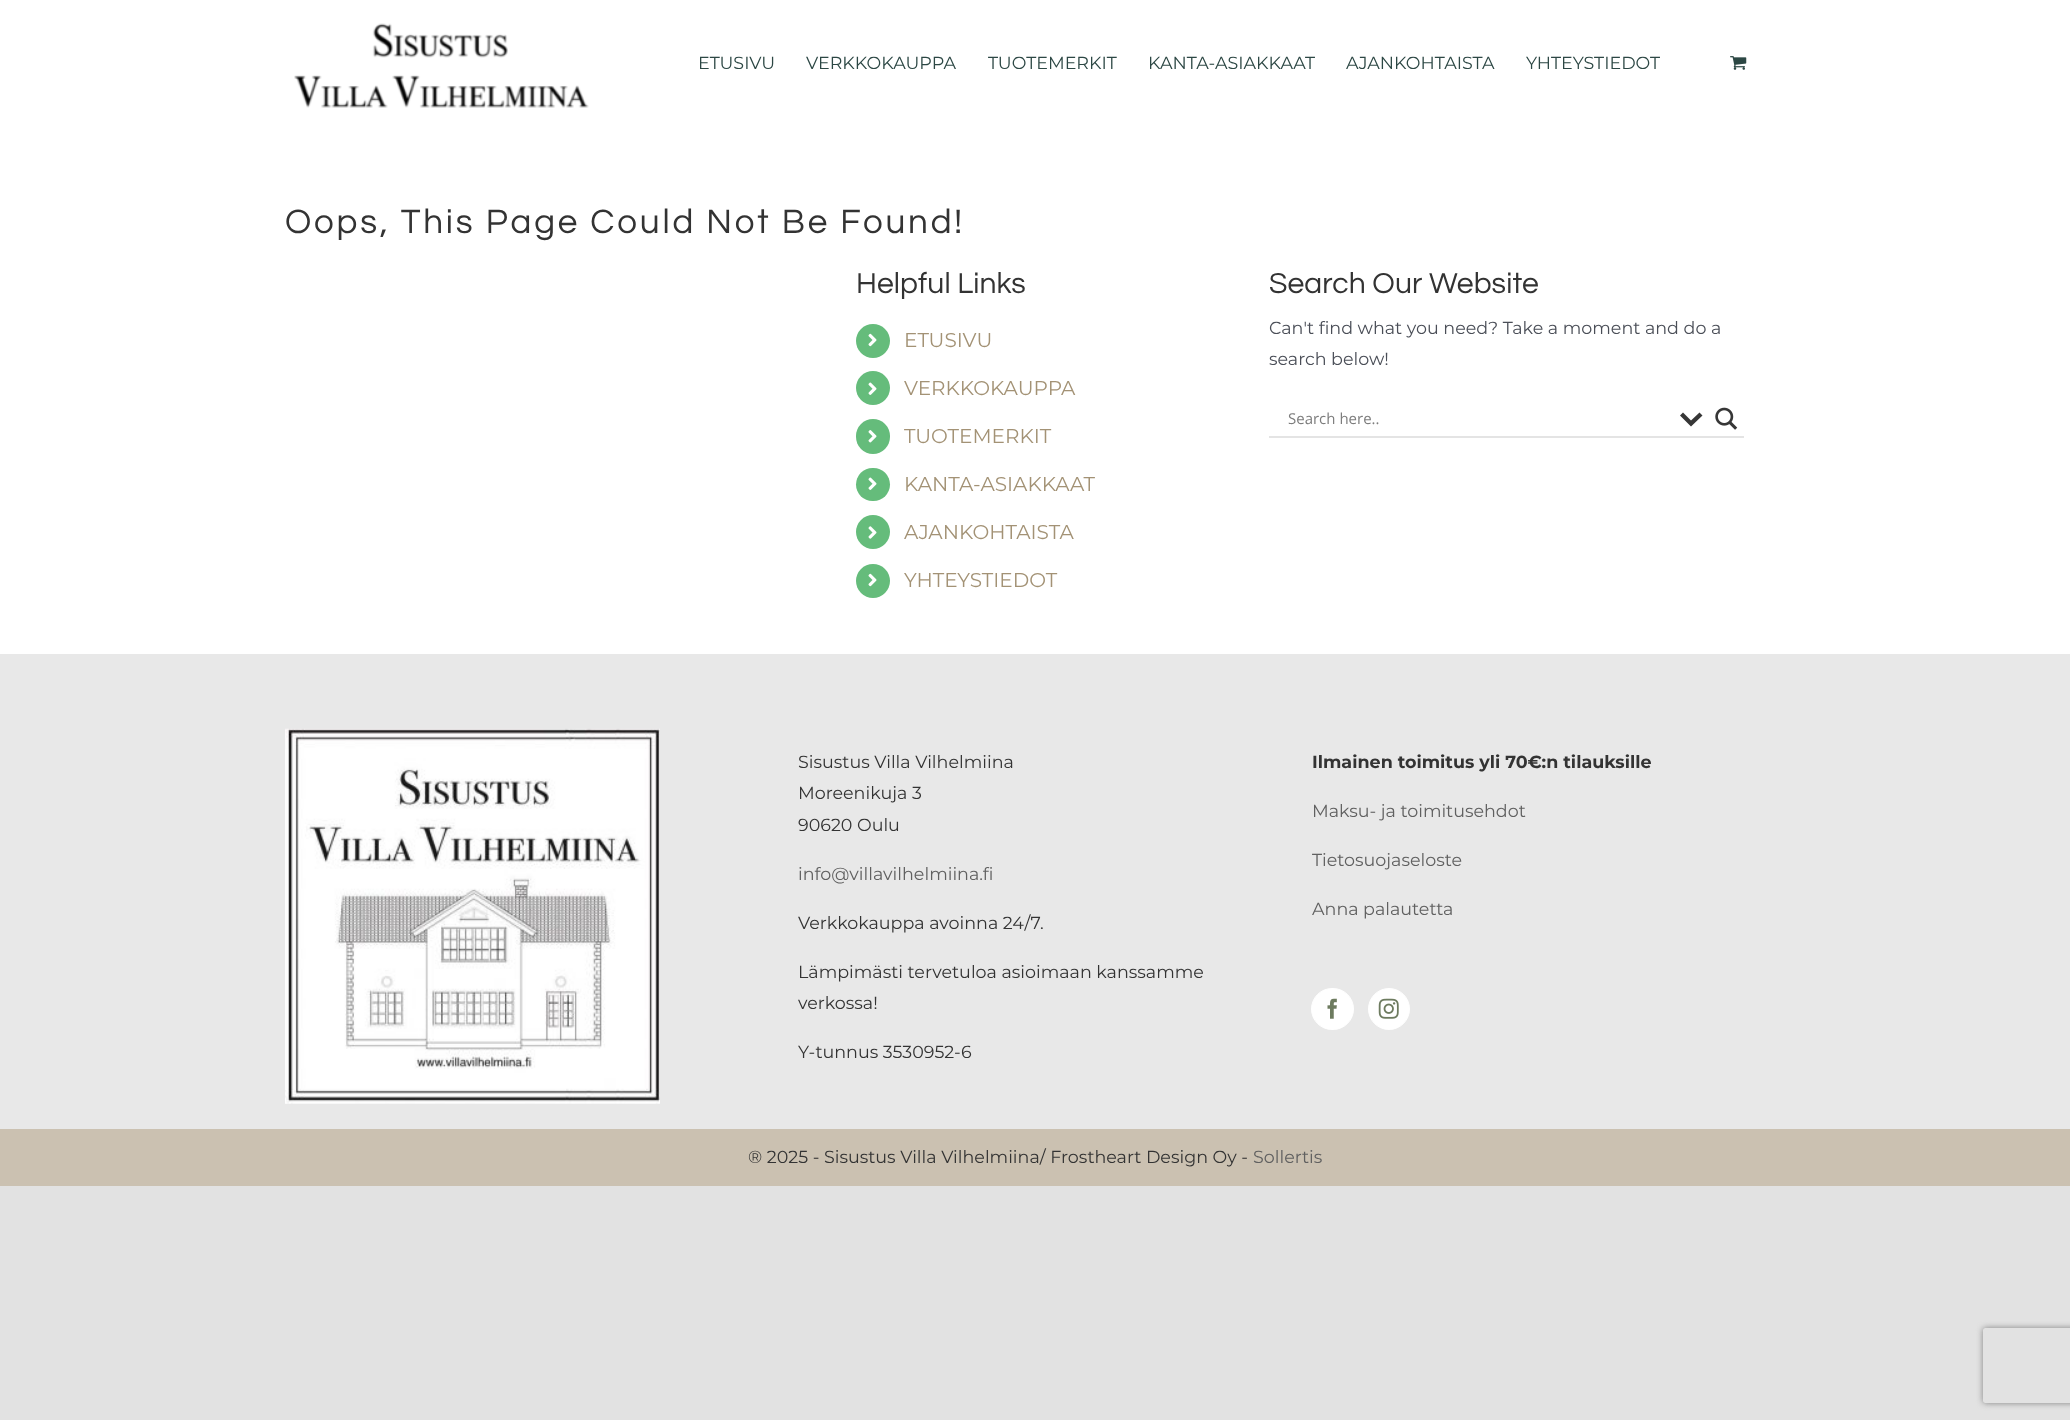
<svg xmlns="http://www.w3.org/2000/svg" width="2070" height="1420">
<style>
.a{font:17.5px Montserrat;fill:#2c4744}
.b{font:35px Questrial;letter-spacing:2.8px;fill:#333}
.c{font:30px Questrial;letter-spacing:0.1px;fill:#333}
.d{font:20px Montserrat;fill:#a39275}
.e{font:17.5px Montserrat;fill:#4a4e57}
.f{font:15px Open Sans;fill:#7d7d7d}
.g{font:17.5px Montserrat;fill:#333}
.h{font:17.5px Montserrat;fill:#606060}
.i{font:bold 17.5px Montserrat;fill:#333}
</style>
<defs>
<clipPath id="clip1"><path d="M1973 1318h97v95h-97zm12.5 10h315c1.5 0 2.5 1 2.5 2.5v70c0 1.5-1 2.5-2.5 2.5h-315c-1.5 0-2.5-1-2.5-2.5v-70c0-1.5 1-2.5 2.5-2.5z" clip-rule="evenodd"/></clipPath>
</defs>
<rect width="100%" height="100%" fill="#e2e2e2"/>
<path fill="#fff" d="M0 0h2070v654H0z"/>
<image href="1.png" x="294" y="23" width="295" height="85"/>
<image href="2.png" x="1730" y="56" width="17" height="14"/>
<circle fill="#65bc7b" cx="873" cy="341" r="17"/>
<image href="3.png" x="868" y="333" width="9" height="14"/>
<circle fill="#65bc7b" cx="873" cy="388" r="17"/>
<image href="4.png" x="868" y="382" width="9" height="13"/>
<rect fill="#65bc7b" x="856" y="419" width="34" height="35" rx="17"/>
<image href="5.png" x="868" y="430" width="9" height="13"/>
<rect fill="#65bc7b" x="856" y="468" width="34" height="33" rx="16.5"/>
<image href="4.png" x="868" y="477" width="9" height="13"/>
<circle fill="#65bc7b" cx="873" cy="532" r="17"/>
<image href="6.png" x="868" y="526" width="9" height="13"/>
<circle fill="#65bc7b" cx="873" cy="581" r="17"/>
<image href="3.png" x="868" y="573" width="9" height="14"/>
<path fill="#e4e4e4" d="M1269 436v2h475v-35v33z"/>
<path fill="#363636" d="M1699.5 412.5l3 3l-11.5 11l-11-11l3-3l8 8z"/>
<image href="7.png" x="1715" y="407" width="23" height="23"/>
<path fill="#e8e8e8" d="M0 654h2070v475H0z"/>
<image href="8.png" x="285" y="728" width="375" height="376"/>
<rect fill="#fff" stroke="#fff" x="1311.5" y="988.5" width="42" height="41" rx="20.5"/>
<image href="9.png" x="1327" y="998" width="10" height="21"/>
<circle fill="#fff" stroke="#fff" cx="1389" cy="1009" r="20.5"/>
<image href="10.png" x="1378" y="998" width="21" height="21"/>
<path fill="#cbc1b1" d="M0 1129h2070v57H0z"/>
<g clip-path="url(#clip1)">
<rect fill="#808080" filter="blur(3px)" x="1983" y="1328" width="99" height="75" rx="2.5"/>
</g>
<text class="a" x="698" y="69">ETUSIVU</text>
<text class="a" x="806" y="69">VERKKOKAUPPA</text>
<text class="a" x="988" y="69">TUOTEMERKIT</text>
<text class="a" x="1148" y="69">KANTA-ASIAKKAAT</text>
<text class="a" x="1346" y="69">AJANKOHTAISTA</text>
<text class="a" x="1526" y="69">YHTEYSTIEDOT</text>
<text class="b" x="285" y="233">Oops, This Page Could Not Be Found!</text>
<text class="c" x="856" y="293">Helpful Links</text>
<text class="d" x="904" y="347">ETUSIVU</text>
<text class="d" x="904" y="395">VERKKOKAUPPA</text>
<text class="d" x="904" y="443">TUOTEMERKIT</text>
<text class="d" x="904" y="491">KANTA-ASIAKKAAT</text>
<text class="d" x="904" y="539">AJANKOHTAISTA</text>
<text class="d" x="904" y="587">YHTEYSTIEDOT</text>
<text class="c" x="1269" y="293">Search Our Website</text>
<text class="e" x="1269" y="334">Can't find what you need? Take a moment and do a</text>
<text class="e" x="1269" y="365">search below!</text>
<text class="f" x="1288" y="424">Search here..</text>
<text class="g" x="798" y="768">Sisustus Villa Vilhelmiina</text>
<text class="g" x="798" y="799">Moreenikuja 3</text>
<text class="g" x="798" y="831">90620 Oulu</text>
<text class="h" x="798" y="880">info@villavilhelmiina.fi</text>
<text class="g" x="798" y="929">Verkkokauppa avoinna 24/7.</text>
<text class="g" x="798" y="978">Lämpimästi tervetuloa asioimaan kanssamme</text>
<text class="g" x="798" y="1009">verkossa!</text>
<text class="g" x="798" y="1058">Y-tunnus 3530952-6</text>
<text class="i" x="1312" y="768">Ilmainen toimitus yli 70€:n tilauksille</text>
<text class="h" x="1312" y="817">Maksu- ja toimitusehdot</text>
<text class="h" x="1312" y="866">Tietosuojaseloste</text>
<text class="h" x="1312" y="915">Anna palautetta</text>
<text class="g" x="748" y="1163">® 2025 - Sisustus Villa Vilhelmiina/ Frostheart Design Oy -</text>
<text class="h" x="1253" y="1163">Sollertis</text>
</svg>
